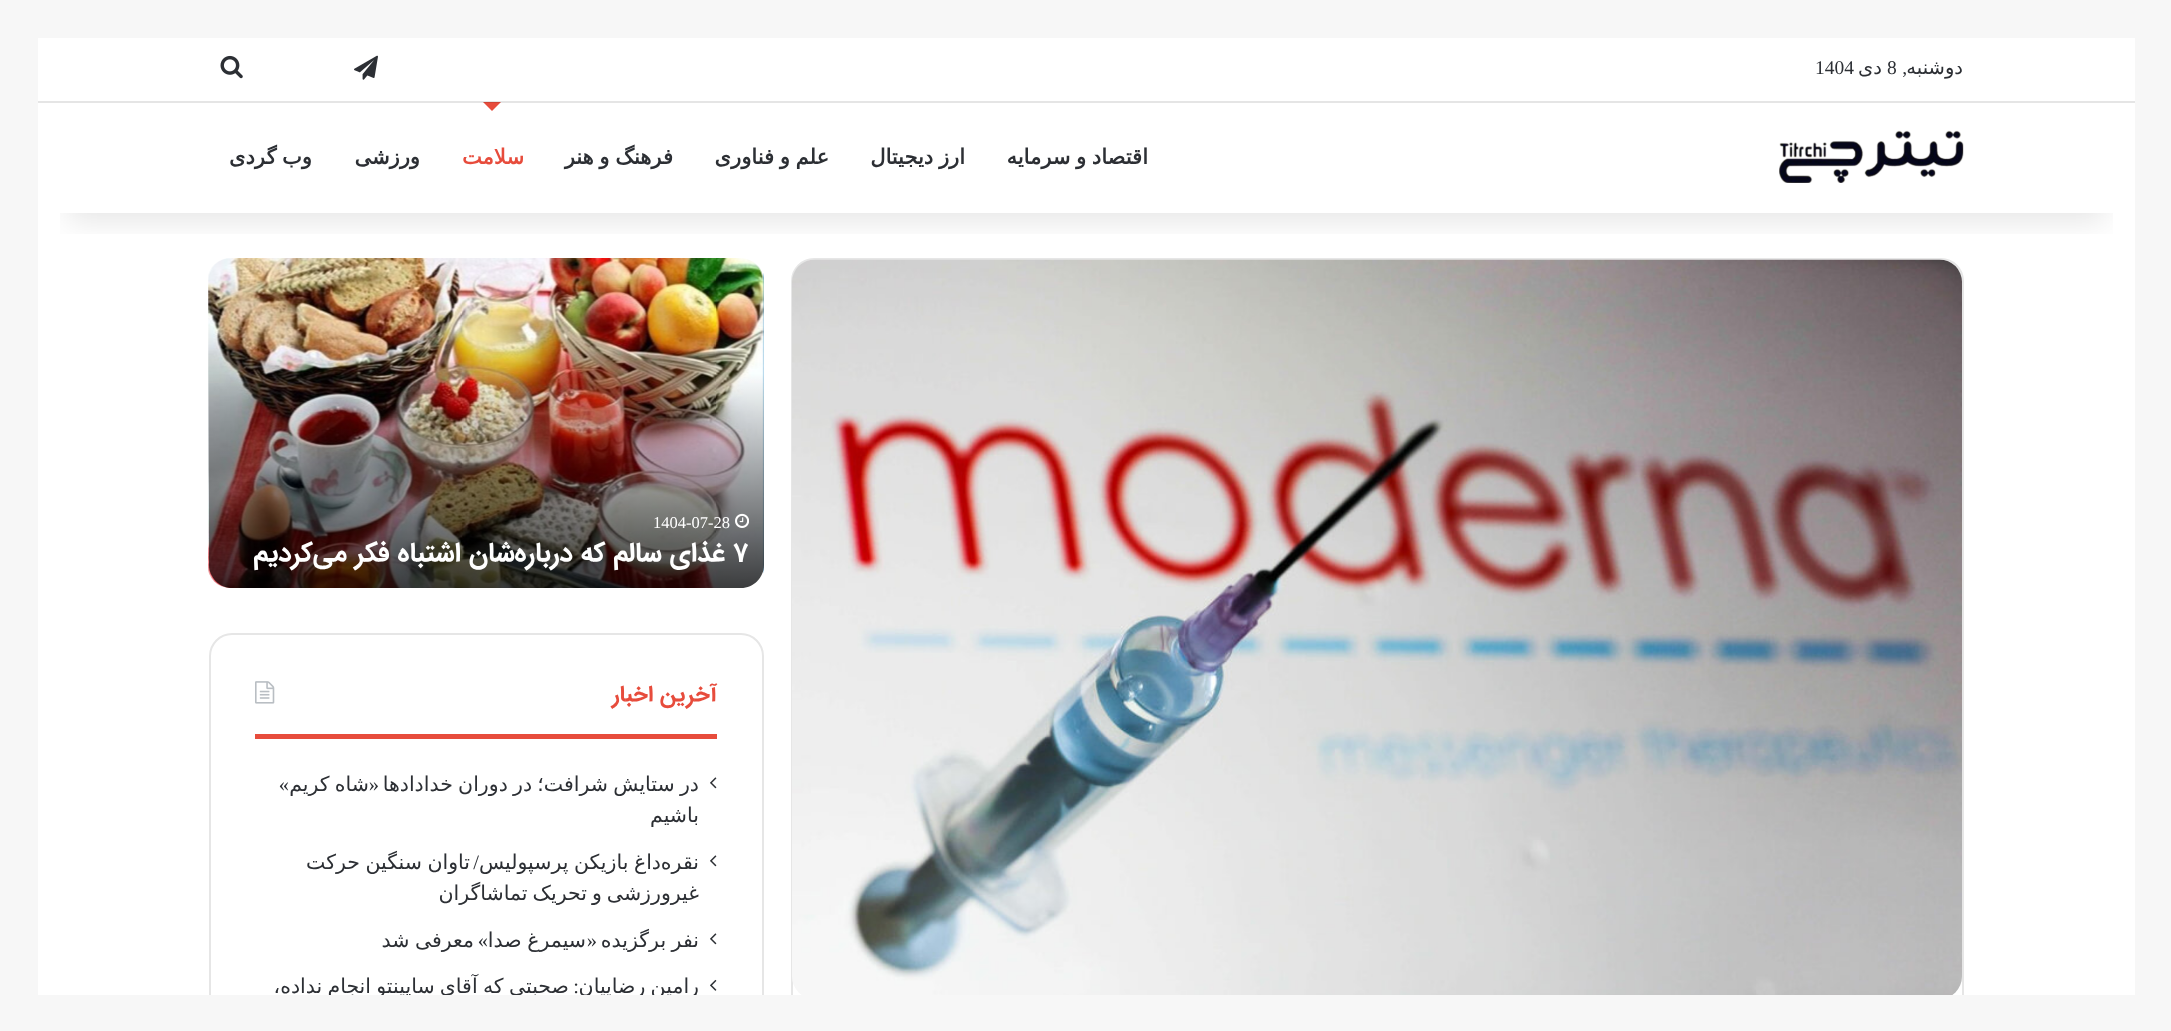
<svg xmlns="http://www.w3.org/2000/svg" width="2171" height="1031">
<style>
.a{font:19.5px DejaVu Sans;direction:rtl;fill:#2c2f34}
.b{font:19.5px Liberation Serif;direction:rtl;fill:#2c2f34}
.c{font:19.5px Liberation Serif;fill:#2c2f34}
.d{font:bold 21px DejaVu Sans;direction:rtl;fill:#2c2f34}
.e{font:bold 21px DejaVu Sans;direction:rtl;fill:#e74c3c}
.f{font:16.5px Liberation Serif;fill:#fff}
.g{font:bold 27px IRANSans;fill:#fff}
.h{font:bold 27px IRANSans;direction:rtl;fill:#fff}
.i{font:bold 22.5px IRANSans;direction:rtl;fill:#e74c3c}
.j{font:20.5px DejaVu Sans;direction:rtl;fill:#2c2f34}
.k{font:20.5px Liberation Serif;direction:rtl;fill:#2c2f34}
</style>
<defs>
<clipPath id="clip1"><path d="M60 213h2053v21H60z"/></clipPath>
<linearGradient id="g1" gradientUnits="userSpaceOnUse" x1="486" y1="373" x2="486" y2="588"><stop offset="0" stop-color="#000" stop-opacity="0"/><stop offset="1" stop-color="#000" stop-opacity="0.75"/></linearGradient>
</defs>
<rect width="100%" height="100%" fill="#f7f7f7"/>
<path fill="#fff" d="M38 102h2097v893H38z"/>
<rect fill="none" stroke="#e6e6e6" stroke-width="2" x="792" y="259" width="1171" height="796" rx="22"/>
<image href="4.png" x="792" y="259" width="1170" height="736"/>
<image href="5.png" x="762" y="273" width="2" height="300"/>
<image href="6.png" x="208" y="258" width="556" height="330"/>
<g clip-path="url(#clip1)">
<path fill="#0000001a" filter="blur(15px)" d="M68 105h2037v116H68z"/>
</g>
<path fill="#e74c3c" d="M481.5 100.5h21l-10.5 10.5z"/>
<path fill="#fff" d="M38 38h2097v64H38z"/>
<path fill="#0000001a" d="M38 101h2097v2H38z"/>
<image href="1.png" x="354" y="55" width="24" height="25"/>
<image href="2.png" x="220" y="55" width="23" height="24"/>
<image href="3.png" x="1779" y="130" width="185" height="53"/>
<path fill="url(#g1)" d="M209 374h555v191c0 12.5-10.5 23-23 23h-509c-12.5 0-23-10.5-23-23z"/>
<image href="7.png" x="735" y="513" width="14" height="15"/>
<rect fill="none" stroke="#e6e6e6" stroke-width="2" x="210" y="634" width="553" height="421" rx="22"/>
<path fill="#e74c3c" d="M255 734h462v5H255z"/>
<image href="8.png" x="255" y="681" width="20" height="23"/>
<image href="9.png" x="710" y="777" width="7" height="12"/>
<image href="9.png" x="710" y="855" width="7" height="12"/>
<image href="9.png" x="710" y="933" width="7" height="12"/>
<image href="10.png" x="710" y="979" width="7" height="12"/>
<text class="a" x="1963" y="74">دوشنبه</text>
<text class="b" x="1907" y="74">,</text>
<text class="c" x="1887" y="74">8</text>
<text class="a" x="1882" y="74">دی</text>
<text class="c" x="1815" y="74">1404</text>
<text class="d" x="1148" y="164" word-spacing="-1">اقتصاد و سرمایه</text>
<text class="d" x="965" y="164" word-spacing="-1">ارز دیجیتال</text>
<text class="d" x="829" y="164" word-spacing="-1">علم و فناوری</text>
<text class="d" x="673" y="164" word-spacing="-1">فرهنگ و هنر</text>
<text class="e" x="524" y="164">سلامت</text>
<text class="d" x="420" y="164">ورزشی</text>
<text class="d" x="312" y="164" word-spacing="-1">وب گردی</text>
<text class="f" x="653" y="528">1404-07-28</text>
<text class="g" x="733" y="561">۷</text>
<text class="h" x="725" y="561">غذای سالم که ‌درباره‌شان اشتباه فکر می‌کردیم</text>
<text class="i" x="717" y="701">آخرین اخبار</text>
<text class="j" x="699" y="791" word-spacing="-1.25">در ستایش شرافت؛ در دوران خدادادها</text>
<text class="k" x="379" y="791">«</text>
<text class="j" x="369" y="791" word-spacing="-1.25">شاه کریم</text>
<text class="k" x="289" y="791">»</text>
<text class="j" x="699" y="822">باشیم</text>
<text class="j" x="661" y="869" word-spacing="-1">داغ بازیکن پرسپولیس</text>
<text class="j" x="699" y="869">نقره</text>
<text class="k" x="479" y="869">/</text>
<text class="j" x="470" y="869" word-spacing="-1">تاوان سنگین حرکت</text>
<text class="j" x="699" y="900" word-spacing="-1.5">غیرورزشی و تحریک تماشاگران</text>
<text class="j" x="699" y="947" word-spacing="-1">نفر برگزیده</text>
<text class="k" x="597" y="947">«</text>
<text class="j" x="586" y="947" word-spacing="-1">سیمرغ صدا</text>
<text class="k" x="488" y="947">»</text>
<text class="j" x="474" y="947" word-spacing="-1">معرفی شد</text>
<text class="j" x="699" y="993" word-spacing="-1.25">رامین رضاییان</text>
<text class="k" x="579" y="993">:</text>
<text class="j" x="569" y="993" word-spacing="-1.25">صحبتی که آقای ساپینتو انجام نداده،</text>
<path fill="#f7f7f7" d="M209 995h1755v36H209z"/>
</svg>
